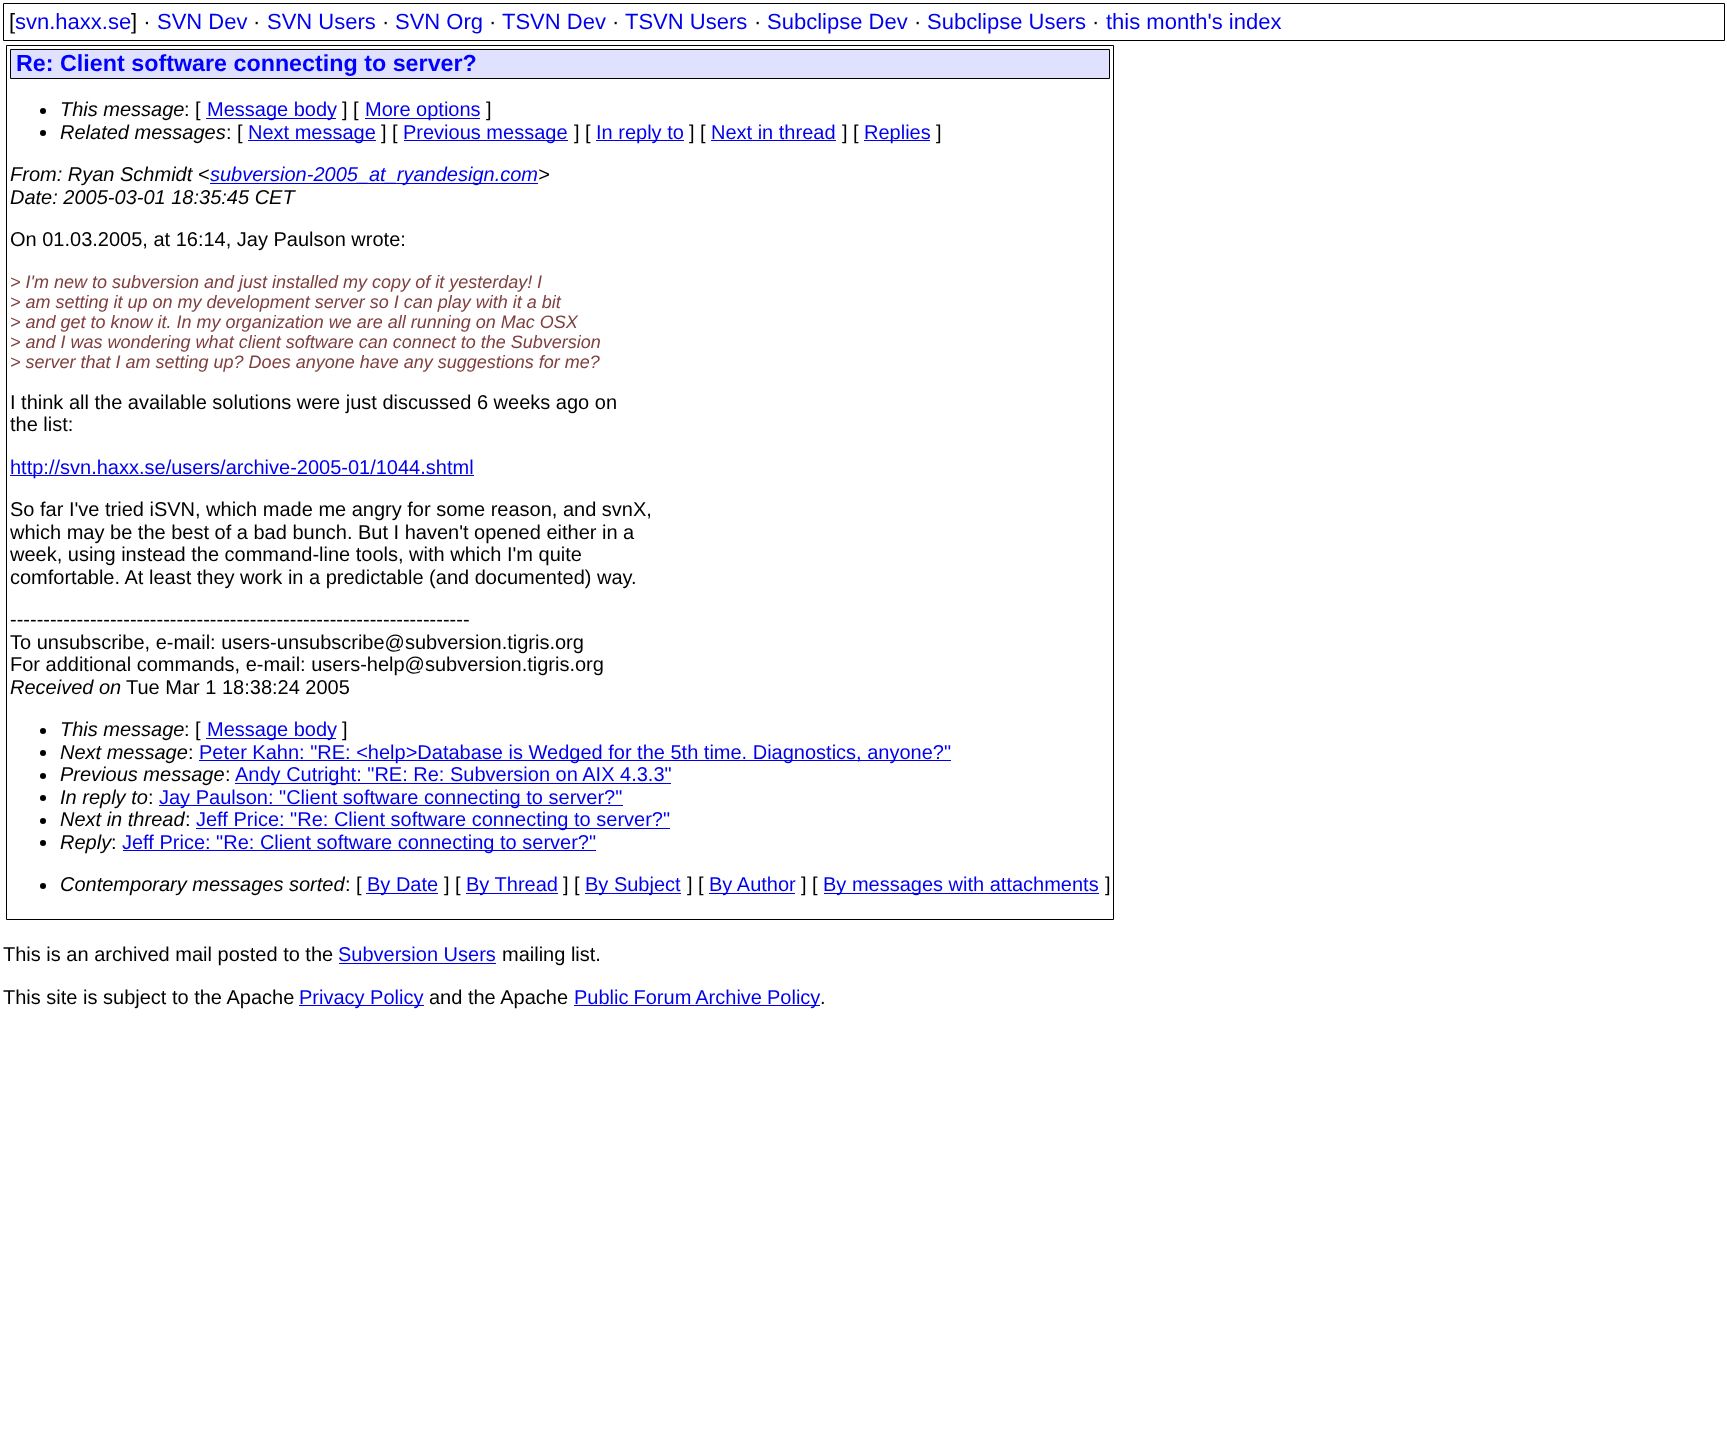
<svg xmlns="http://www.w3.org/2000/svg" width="1727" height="1429">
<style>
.a{font:22px Liberation Sans;fill:#000}
.b{font:22px Liberation Sans;fill:#00e}
.c{font:bold 23.3px Liberation Sans;fill:#00f}
.d{font:italic 20px Liberation Sans;fill:#000}
.e{font:20px Liberation Sans;fill:#000}
.f{font:20px Liberation Sans;fill:#00e}
.g{font:italic 20px Liberation Sans;fill:#00e}
.h{font:italic 18px Liberation Sans;fill:#804040}
</style>
<rect width="100%" height="100%" fill="#fff"/>
<path fill="none" stroke="#000" d="M3.5 3.5h1721v37H3.5z"/>
<path fill="none" stroke="#000" d="M6.5 45.5h1107v874H6.5z"/>
<path fill="#e0e0ff" stroke="#000" d="M10.5 49.5h1099v29H10.5z"/>
<circle fill="#000" cx="43" cy="111" r="3"/>
<path fill="#00e" d="M206 118h130v1H206z"/>
<path fill="#00e" d="M365 118h115v1H365z"/>
<circle fill="#000" cx="43" cy="133" r="3"/>
<path fill="#00e" d="M248 140h128v1H248z"/>
<path fill="#00e" d="M404 140h164v1H404z"/>
<path fill="#00e" d="M596 140h88v1H596z"/>
<path fill="#00e" d="M711 140h125v1H711z"/>
<path fill="#00e" d="M864 140h66v1H864z"/>
<path fill="#00e" d="M210 183h328v1H210z"/>
<path fill="#00e" d="M10 475h464v1H10z"/>
<circle fill="#000" cx="43" cy="731" r="3"/>
<path fill="#00e" d="M206 738h130v1H206z"/>
<circle fill="#000" cx="43" cy="753" r="3"/>
<path fill="#00e" d="M199 760h752v1H199z"/>
<circle fill="#000" cx="43" cy="776" r="3"/>
<path fill="#00e" d="M235 783h436v1H235z"/>
<circle fill="#000" cx="43" cy="798" r="3"/>
<path fill="#00e" d="M159 805h464v1H159z"/>
<circle fill="#000" cx="43" cy="821" r="3"/>
<path fill="#00e" d="M196 828h474v1H196z"/>
<circle fill="#000" cx="43" cy="843" r="3"/>
<path fill="#00e" d="M123 850h473v1H123z"/>
<circle fill="#000" cx="43" cy="886" r="3"/>
<path fill="#00e" d="M366 893h72v1H366z"/>
<path fill="#00e" d="M466 893h92v1H466z"/>
<path fill="#00e" d="M585 893h96v1H585z"/>
<path fill="#00e" d="M709 893h86v1H709z"/>
<path fill="#00e" d="M824 893h275v1H824z"/>
<path fill="#00e" d="M339 963h157v1H339z"/>
<path fill="#00e" d="M299 1005h125v1H299z"/>
<path fill="#00e" d="M574 1005h246v1H574z"/>
<text class="a" x="9" y="29">[</text>
<text class="b" x="15" y="29">svn.haxx.se</text>
<text class="a" x="131" y="29">] ·</text>
<text class="b" x="157" y="29">SVN Dev</text>
<text class="a" x="253" y="29">·</text>
<text class="b" x="267" y="29">SVN Users</text>
<text class="a" x="382" y="29">·</text>
<text class="b" x="395" y="29">SVN Org</text>
<text class="a" x="489" y="29">·</text>
<text class="b" x="502" y="29">TSVN Dev</text>
<text class="a" x="612" y="29">·</text>
<text class="b" x="625" y="29">TSVN Users</text>
<text class="a" x="754" y="29">·</text>
<text class="b" x="767" y="29">Subclipse Dev</text>
<text class="a" x="914" y="29">·</text>
<text class="b" x="927" y="29">Subclipse Users</text>
<text class="a" x="1092" y="29">·</text>
<text class="b" x="1106" y="29">this month's index</text>
<text class="c" x="16" y="71">Re: Client software connecting to server?</text>
<text class="d" x="60" y="116">This message</text>
<text class="e" x="184" y="116">: [</text>
<text class="f" x="207" y="116">Message body</text>
<text class="e" x="342" y="116">] [</text>
<text class="f" x="365" y="116">More options</text>
<text class="e" x="486" y="116">]</text>
<text class="d" x="60" y="139">Related messages</text>
<text class="e" x="226" y="139">: [</text>
<text class="f" x="248" y="139">Next message</text>
<text class="e" x="381" y="139">] [</text>
<text class="f" x="403" y="139">Previous message</text>
<text class="e" x="574" y="139">] [</text>
<text class="f" x="596" y="139">In reply to</text>
<text class="e" x="689" y="139">] [</text>
<text class="f" x="711" y="139">Next in thread</text>
<text class="e" x="842" y="139">] [</text>
<text class="f" x="864" y="139">Replies</text>
<text class="e" x="936" y="139">]</text>
<text class="d" x="10" y="181">From: Ryan Schmidt &lt;</text>
<text class="g" x="210" y="181">subversion-2005_at_ryandesign.com</text>
<text class="d" x="538" y="181">&gt;</text>
<text class="d" x="10" y="204">Date: 2005-03-01 18:35:45 CET</text>
<text class="e" x="10" y="246">On 01.03.2005, at 16:14, Jay Paulson wrote:</text>
<text class="h" x="10" y="288">&gt; I'm new to subversion and just installed my copy of it yesterday!</text>
<text class="h" x="537" y="288">I</text>
<text class="h" x="10" y="308">&gt; am setting it up on my development server so I can play with it a bit</text>
<text class="h" x="10" y="328">&gt; and get to know it. In my organization we are all running on Mac OSX</text>
<text class="h" x="10" y="348">&gt; and I was wondering what client software can connect to the Subversion</text>
<text class="h" x="10" y="368">&gt; server that I am setting up? Does anyone have any suggestions for me?</text>
<text class="e" x="10" y="409">I think all the available solutions were just discussed 6 weeks ago on</text>
<text class="e" x="10" y="431">the list:</text>
<text class="f" x="10" y="474">http://svn.haxx.se/users/archive-2005-01/1044.shtml</text>
<text class="e" x="10" y="516">So far I've tried iSVN, which made me angry for some reason, and svnX,</text>
<text class="e" x="10" y="539">which may be the best of a bad bunch. But I haven't opened either in a</text>
<text class="e" x="10" y="561">week, using instead the command-line tools, with which I'm quite</text>
<text class="e" x="10" y="584">comfortable. At least they work in a predictable (and documented) way.</text>
<text class="e" x="10" y="626">---------------------------------------------------------------------</text>
<text class="e" x="10" y="649">To unsubscribe, e-mail: users-unsubscribe@subversion.tigris.org</text>
<text class="e" x="10" y="671">For additional commands, e-mail: users-help@subversion.tigris.org</text>
<text class="d" x="10" y="694">Received on</text>
<text class="e" x="126" y="694">Tue Mar 1 18:38:24 2005</text>
<text class="d" x="60" y="736">This message</text>
<text class="e" x="184" y="736">: [</text>
<text class="f" x="207" y="736">Message body</text>
<text class="e" x="342" y="736">]</text>
<text class="d" x="60" y="759">Next message</text>
<text class="e" x="188" y="759">:</text>
<text class="f" x="199" y="759">Peter Kahn: "RE: &lt;help&gt;Database is Wedged for the 5th time. Diagnostics, anyone?"</text>
<text class="d" x="60" y="781">Previous message</text>
<text class="e" x="225" y="781">:</text>
<text class="f" x="235" y="781">Andy Cutright: "RE: Re: Subversion on AIX 4.3.3"</text>
<text class="d" x="60" y="804">In reply to</text>
<text class="e" x="148" y="804">:</text>
<text class="f" x="159" y="804">Jay Paulson: "Client software connecting to server?"</text>
<text class="d" x="60" y="826">Next in thread</text>
<text class="e" x="185" y="826">:</text>
<text class="f" x="196" y="826">Jeff Price: "Re: Client software connecting to server?"</text>
<text class="d" x="60" y="849">Reply</text>
<text class="e" x="111" y="849">:</text>
<text class="f" x="122" y="849">Jeff Price: "Re: Client software connecting to server?"</text>
<text class="d" x="60" y="891">Contemporary messages sorted</text>
<text class="e" x="345" y="891">: [</text>
<text class="f" x="367" y="891">By Date</text>
<text class="e" x="444" y="891">] [</text>
<text class="f" x="466" y="891">By Thread</text>
<text class="e" x="563" y="891">] [</text>
<text class="f" x="585" y="891">By Subject</text>
<text class="e" x="687" y="891">] [</text>
<text class="f" x="709" y="891">By Author</text>
<text class="e" x="801" y="891">] [</text>
<text class="f" x="823" y="891">By messages with attachments</text>
<text class="e" x="1105" y="891">]</text>
<text class="e" x="3" y="961">This is an archived mail posted to the</text>
<text class="f" x="338" y="961">Subversion Users</text>
<text class="e" x="502" y="961">mailing list.</text>
<text class="e" x="3" y="1004">This site is subject to the Apache</text>
<text class="f" x="299" y="1004">Privacy Policy</text>
<text class="e" x="429" y="1004">and the Apache</text>
<text class="f" x="574" y="1004" word-spacing="-0.5">Public Forum Archive Policy</text>
<text class="e" x="820" y="1004">.</text>
</svg>
